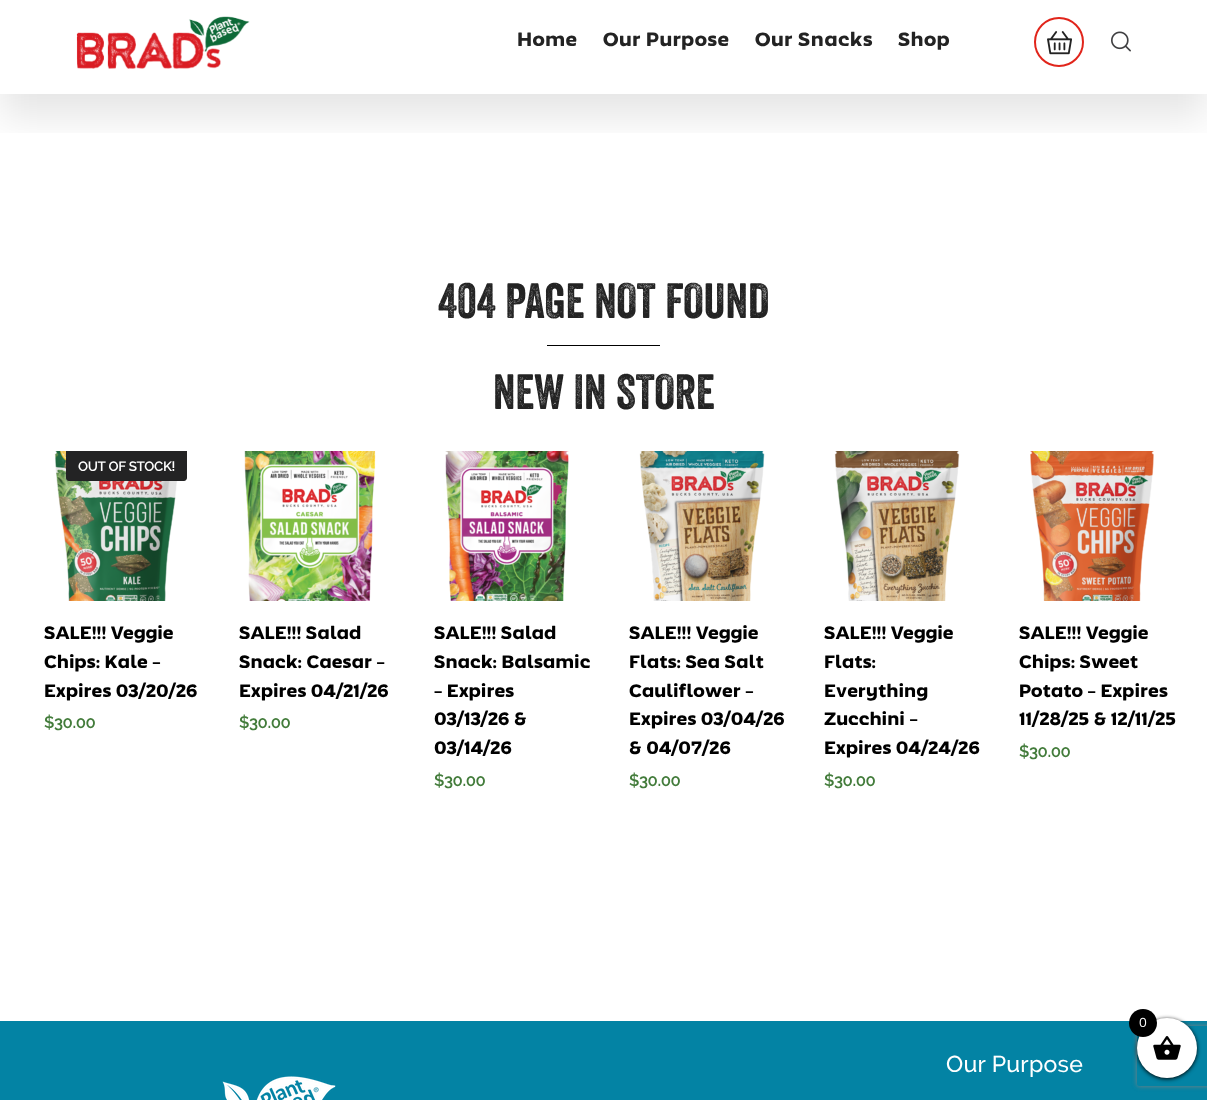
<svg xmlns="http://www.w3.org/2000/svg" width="1207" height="1100">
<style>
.a{font:bold 19.25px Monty;letter-spacing:0.4px;fill:#232323}
.b{font:48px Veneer;fill:#232323}
.c{font:bold 13px Raleway;fill:#fff}
.d{font:bold 18px Monty;fill:#000}
.e{font:bold 16px Raleway;fill:#437c3b}
.f{font:13px Nunito Sans;fill:#fff}
.g{font:500 23px Raleway;letter-spacing:0.25px;fill:#fff}
</style>
<defs>
<clipPath id="clip1"><path d="M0 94h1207v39H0z"/></clipPath>
<clipPath id="clip2"><path d="M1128 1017h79v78h-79zm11 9h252c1 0 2 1 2 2v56c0 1-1 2-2 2h-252c-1 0-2-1-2-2v-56c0-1 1-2 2-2z" clip-rule="evenodd"/></clipPath>
</defs>
<rect width="100%" height="100%" fill="#fff"/>
<g clip-path="url(#clip1)">
<path fill="#0000001a" filter="blur(19px)" d="M0 23h1207v94H0z"/>
</g>
<image href="1.png" x="76" y="16" width="174" height="53"/>
<circle fill="none" stroke="#e1251b" stroke-width="2" cx="1059" cy="42" r="24"/>
<image href="2.png" x="1047" y="31" width="25" height="24"/>
<image href="3.png" x="1111" y="31" width="20" height="21"/>
<path fill="#000" d="M547 345h113v1H547z"/>
<image href="4.png" x="54" y="451" width="124" height="150"/>
<path fill="#232324" d="M66 451h121v27c0 1.5-1.5 3-3 3h-115c-1.5 0-3-1.5-3-3z"/>
<image href="5.png" x="244" y="451" width="132" height="150"/>
<image href="6.png" x="445" y="451" width="124" height="150"/>
<image href="7.png" x="639" y="451" width="126" height="150"/>
<image href="8.png" x="834" y="451" width="126" height="150"/>
<image href="9.png" x="1030" y="451" width="124" height="150"/>
<path fill="#0383a4" d="M0 1021h1207v79H0z"/>
<rect fill="#000" filter="blur(2px)" x="1137" y="1019" width="60" height="60" rx="30"/>
<g clip-path="url(#clip2)">
<rect fill="#808080" filter="blur(2.5px)" x="1137" y="1026" width="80" height="60" rx="2"/>
</g>
<circle fill="#fff" cx="1167" cy="1048" r="30"/>
<image href="10.png" x="1153" y="1036" width="28" height="24"/>
<circle fill="#000" cx="1143" cy="1023" r="14"/>
<image href="11.png" x="222" y="1076" width="114" height="24"/>
<text class="a" x="517" y="46">Home</text>
<text class="a" x="603" y="46">Our Purpose</text>
<text class="a" x="755" y="46">Our Snacks</text>
<text class="a" x="898" y="46">Shop</text>
<text class="b" x="438" y="318">404 PAGE NOT FOUND</text>
<text class="b" x="493" y="409">NEW IN STORE</text>
<text class="c" x="78" y="471">OUT OF STOCK!</text>
<text class="d" x="44" y="639">SALE!!! Veggie</text>
<text class="d" x="44" y="668">Chips: Kale –</text>
<text class="d" x="44" y="697">Expires 03/20/26</text>
<text class="e" x="44" y="728">$30.00</text>
<text class="d" x="239" y="639">SALE!!! Salad</text>
<text class="d" x="239" y="668">Snack: Caesar –</text>
<text class="d" x="239" y="697">Expires 04/21/26</text>
<text class="e" x="239" y="728">$30.00</text>
<text class="d" x="434" y="639">SALE!!! Salad</text>
<text class="d" x="434" y="668">Snack: Balsamic</text>
<text class="d" x="434" y="697">– Expires</text>
<text class="d" x="434" y="725">03/13/26 &amp;</text>
<text class="d" x="434" y="754">03/14/26</text>
<text class="e" x="434" y="786">$30.00</text>
<text class="d" x="629" y="639">SALE!!! Veggie</text>
<text class="d" x="629" y="668">Flats: Sea Salt</text>
<text class="d" x="629" y="697">Cauliflower –</text>
<text class="d" x="629" y="725">Expires 03/04/26</text>
<text class="d" x="629" y="754">&amp; 04/07/26</text>
<text class="e" x="629" y="786">$30.00</text>
<text class="d" x="824" y="639">SALE!!! Veggie</text>
<text class="d" x="824" y="668">Flats:</text>
<text class="d" x="824" y="697">Everything</text>
<text class="d" x="824" y="725">Zucchini –</text>
<text class="d" x="824" y="754">Expires 04/24/26</text>
<text class="e" x="824" y="786">$30.00</text>
<text class="d" x="1019" y="639">SALE!!! Veggie</text>
<text class="d" x="1019" y="668">Chips: Sweet</text>
<text class="d" x="1019" y="697">Potato – Expires</text>
<text class="d" x="1019" y="725">11/28/25 &amp; 12/11/25</text>
<text class="e" x="1019" y="757">$30.00</text>
<text class="f" x="1139" y="1027">0</text>
<text class="g" x="946" y="1072">Our Purpose</text>
</svg>
